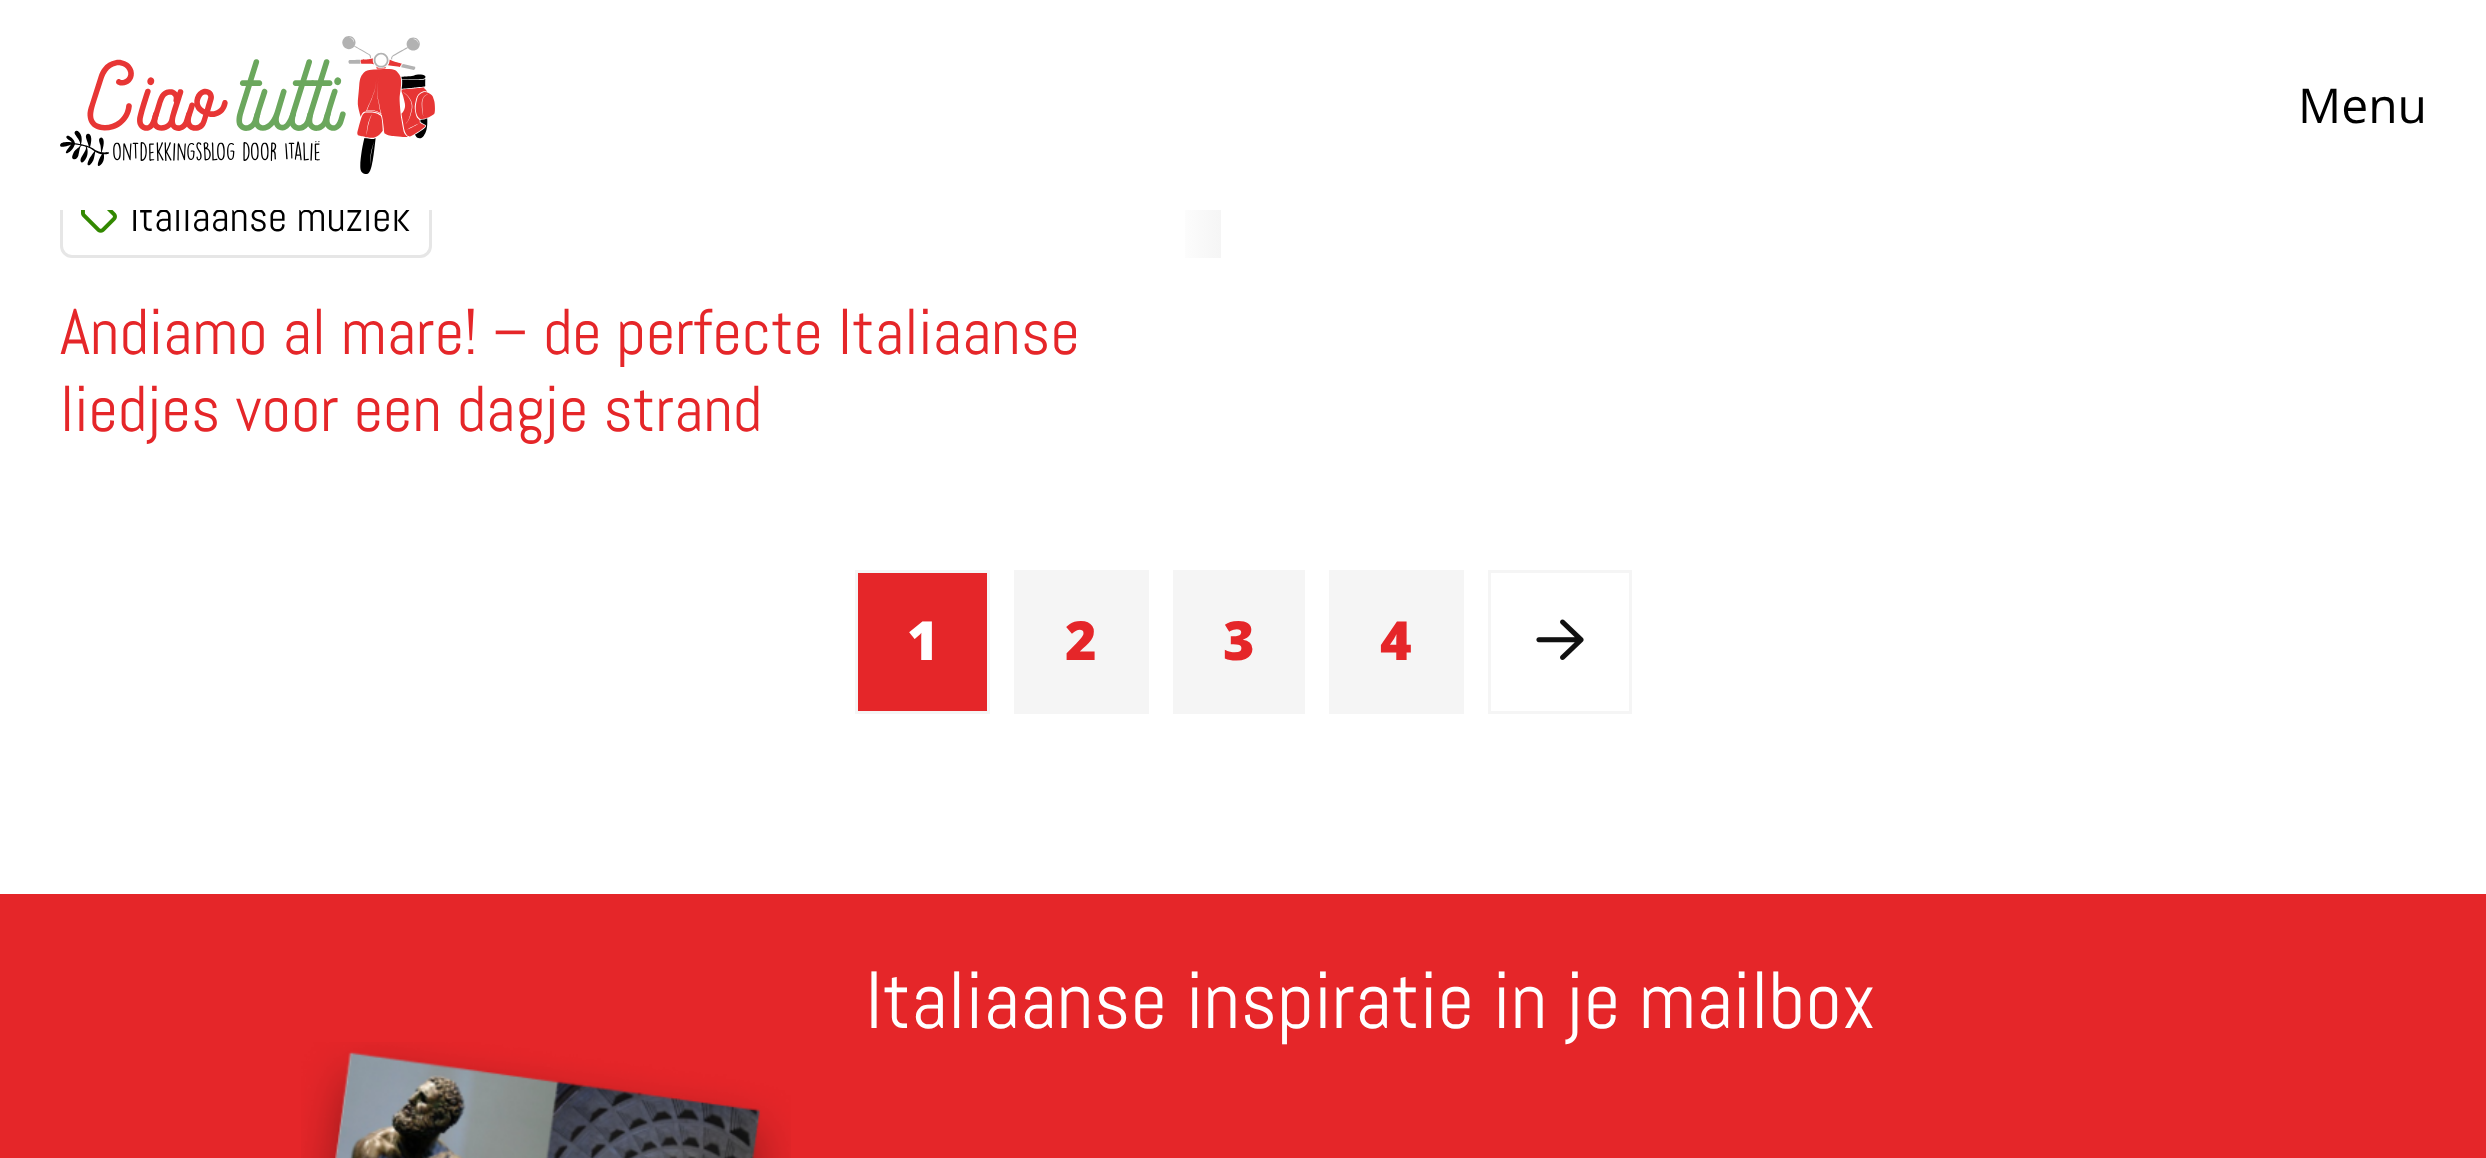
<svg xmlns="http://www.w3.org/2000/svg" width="2486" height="1158">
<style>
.a{font:48px Open Sans;fill:#000}
.b{font:42px Abel;fill:#000}
.c{font:64.7px Abel;fill:#e52629}
.d{font:800 54px Open Sans;fill:#fff}
.e{font:800 54px Open Sans;fill:#e52629}
.f{font:80.8px Abel;fill:#fff}
</style>
<defs>
<linearGradient id="g1" gradientUnits="userSpaceOnUse" x1="1221" y1="216" x2="1173" y2="216"><stop offset="0" stop-color="#f5f5f5"/><stop offset="1" stop-color="#fff"/></linearGradient>
</defs>
<rect width="100%" height="100%" fill="#fff"/>
<image href="1.png" x="60" y="36" width="375" height="138"/>
<rect fill="none" stroke="#e6e6e6" stroke-width="3" x="61.5" y="175.5" width="369" height="81" rx="10.5"/>
<image href="2.png" x="81" y="210" width="36" height="23"/>
<path fill="url(#g1)" d="M1185 210h36v48H1185z"/>
<path fill="#e52629" stroke="#f5f5f5" stroke-width="3" d="M856.5 571.5h132v141H856.5z"/>
<path fill="#f5f5f5" d="M1014 570h135v144H1014z"/>
<path fill="#f5f5f5" d="M1173 570h132v144H1173z"/>
<path fill="#f5f5f5" d="M1329 570h135v144H1329z"/>
<path fill="none" stroke="#f5f5f5" stroke-width="3" d="M1489.5 571.5h141v141H1489.5z"/>
<image href="3.png" x="1536" y="619" width="48" height="41"/>
<path fill="#e52629" d="M0 894h2486v264H0z"/>
<image href="4.png" x="301" y="1042" width="490" height="116"/>
<text class="a" x="2298" y="123">Menu</text>
<text class="b" x="130" y="231">Italiaanse muziek</text>
<path fill="#fff" d="M60 174h372v36H60z"/>
<text class="c" x="60" y="354">Andiamo al mare! – de perfecte Italiaanse</text>
<text class="c" x="60" y="431">liedjes voor een dagje strand</text>
<text class="d" x="907" y="660">1</text>
<text class="e" x="1065" y="660">2</text>
<text class="e" x="1223" y="660">3</text>
<text class="e" x="1380" y="660">4</text>
<text class="f" x="865" y="1028">Italiaanse inspiratie in je mailbox</text>
</svg>
